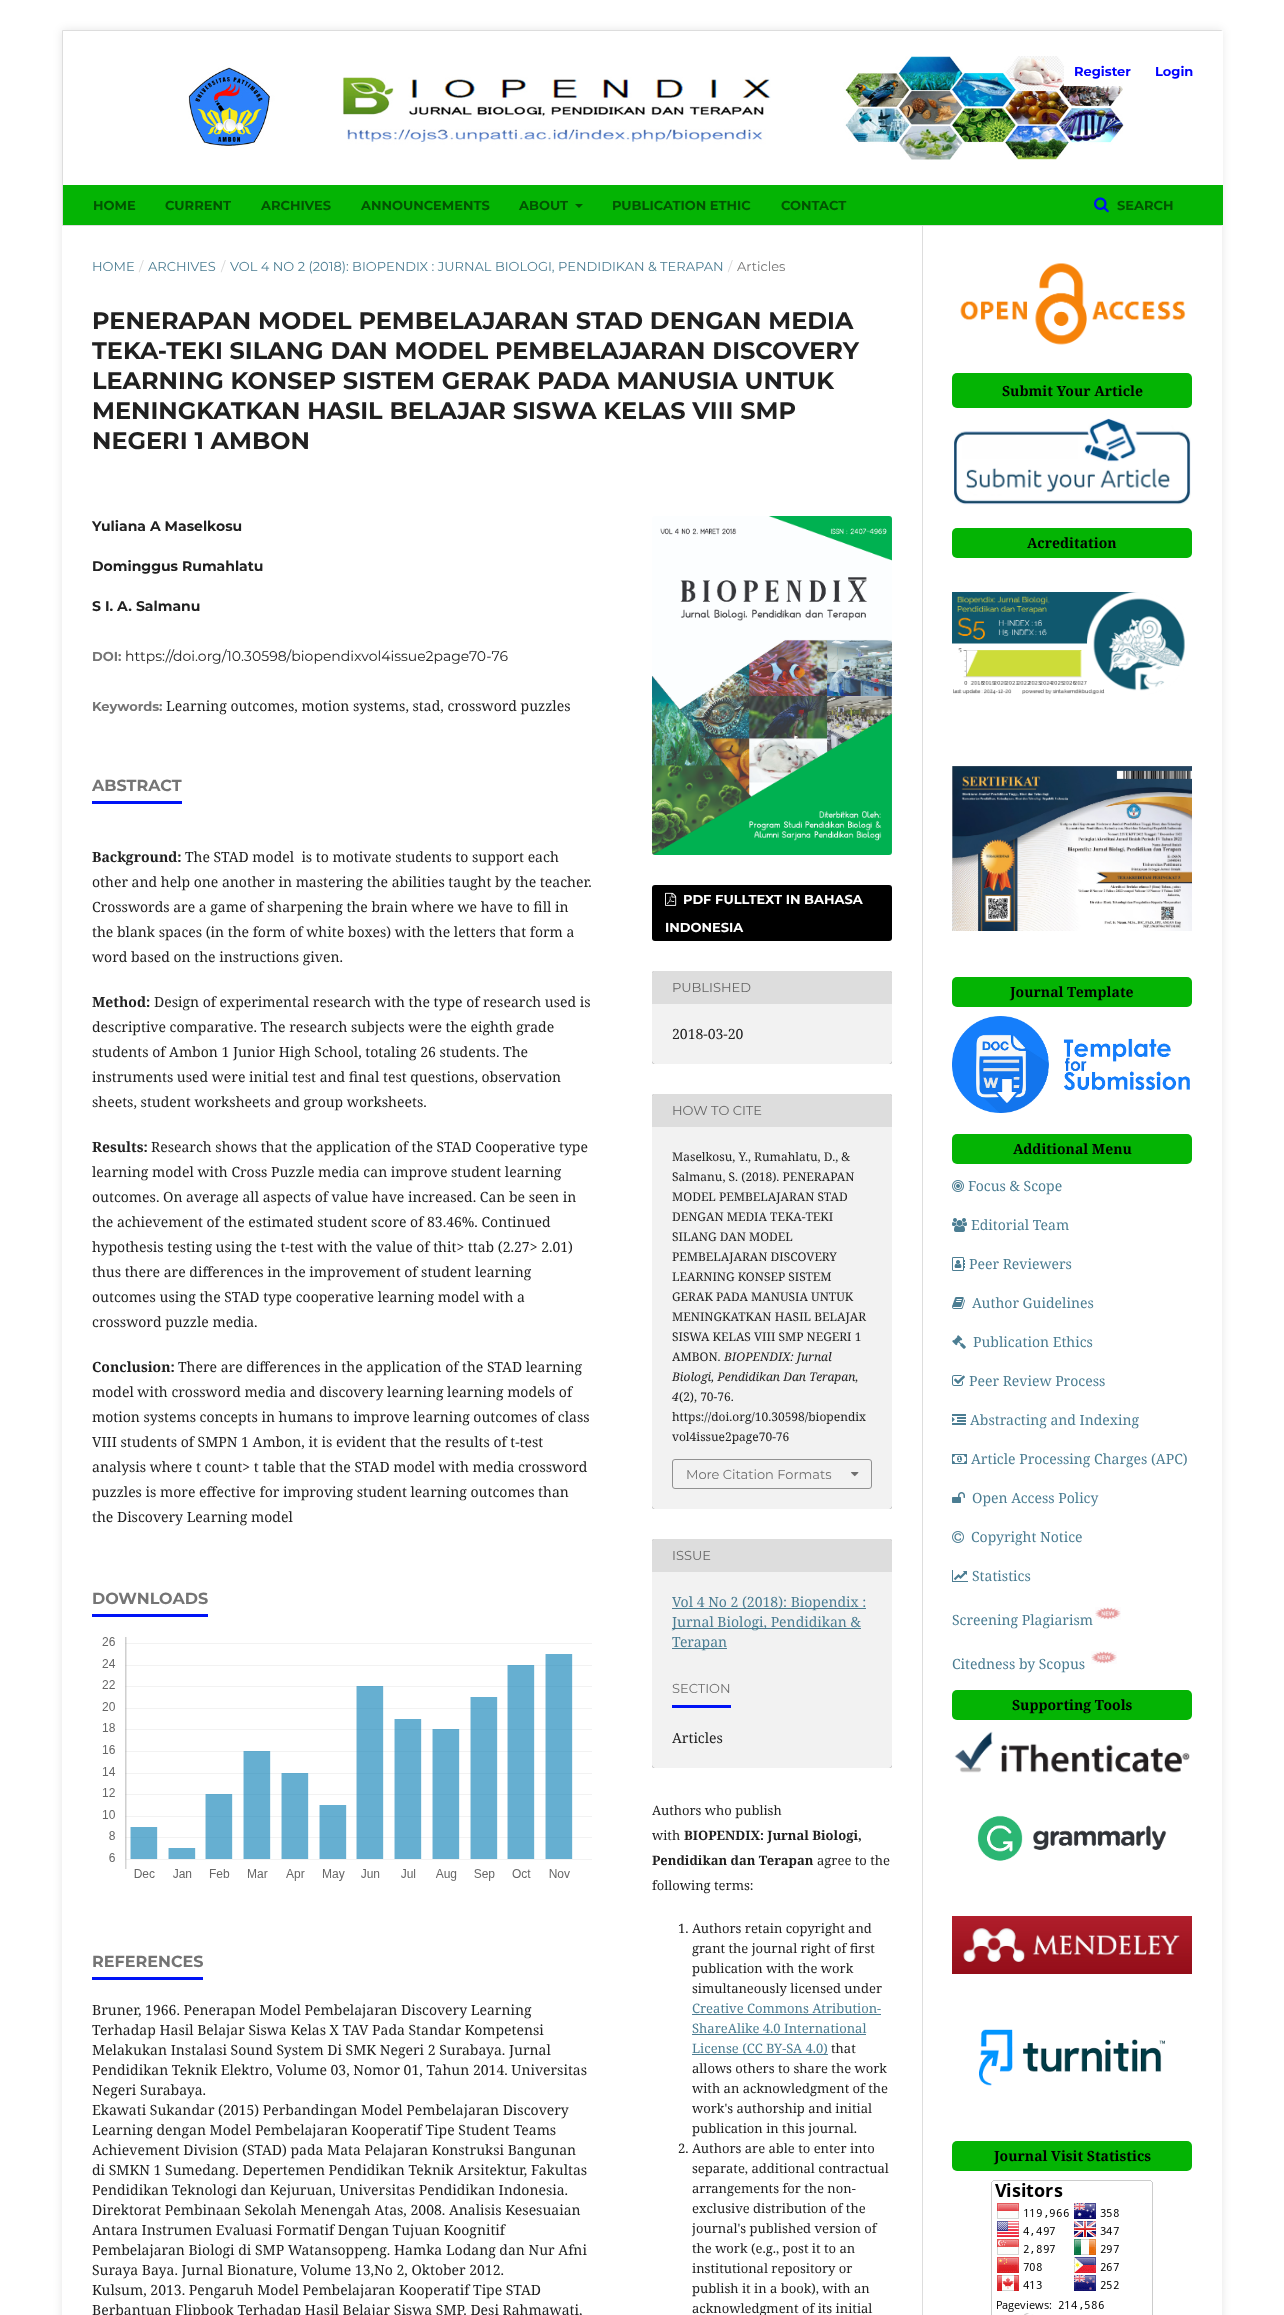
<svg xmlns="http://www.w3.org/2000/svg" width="1284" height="2315">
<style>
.a{font:bold 13px Montserrat;fill:#00f}
.b{font:bold 13px Montserrat;fill:#025302}
.c{font:13px Montserrat;fill:#4b7d92}
.d{font:13px Montserrat;fill:#d6d6d6}
.e{font:13px Montserrat;fill:#757575}
.f{font:bold 24px Montserrat;fill:#212121}
.g{font:bold 14px Montserrat;fill:#212121}
.h{font:bold 13px Montserrat;fill:#757575}
.i{font:14px Montserrat;fill:#212121}
.j{font:14px Noto Serif;fill:#212121}
.k{font:bold 16px Montserrat;fill:#757575}
.l{font:bold 14px Noto Serif;fill:#212121}
.m{font:bold 13px Montserrat;fill:#fff}
.n{font:13px Montserrat;fill:#666}
.o{font:12px Noto Serif;fill:#212121}
.p{font:italic 12px Noto Serif;fill:#212121}
.q{font:13px Montserrat;fill:#6f6f6f}
.r{font:14px Noto Serif;fill:#4b7d92}
.s{font:13px Noto Serif;fill:#212121}
.t{font:bold 13px Noto Serif;fill:#212121}
.u{font:13px Noto Serif;fill:#4b7d92}
.v{font:bold 14px Noto Serif;fill:#000}
</style>
<defs>
<clipPath id="clip1"><path d="M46 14h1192v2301h-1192zm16 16h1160v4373h-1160z" clip-rule="evenodd"/></clipPath>
<clipPath id="clip2"><path d="M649 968h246v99h-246zm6 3h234c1.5 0 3 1.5 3 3v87c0 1.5-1.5 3-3 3h-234c-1.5 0-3-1.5-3-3v-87c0-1.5 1.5-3 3-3z" clip-rule="evenodd"/></clipPath>
<clipPath id="clip3"><path d="M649 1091h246v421h-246zm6 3h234c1.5 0 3 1.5 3 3v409c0 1.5-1.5 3-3 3h-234c-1.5 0-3-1.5-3-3v-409c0-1.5 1.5-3 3-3z" clip-rule="evenodd"/></clipPath>
<clipPath id="clip4"><path d="M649 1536h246v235h-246zm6 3h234c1.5 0 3 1.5 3 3v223c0 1.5-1.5 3-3 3h-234c-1.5 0-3-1.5-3-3v-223c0-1.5 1.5-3 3-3z" clip-rule="evenodd"/></clipPath>
</defs>
<rect width="100%" height="100%" fill="#fff"/>
<g clip-path="url(#clip1)">
<path fill="#0000001a" filter="blur(5px)" d="M62 30h1160v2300H62z"/>
</g>
<path fill="none" stroke="#ddd" d="M62.5 30.5h1159v195H62.5z"/>
<path fill="#fff" d="M1221 31h2v154H1221z"/>
<image href="1.png" x="188" y="56" width="936" height="104"/>
<path fill="#fff" d="M1064 67h57v19H1064z"/>
<path fill="#04b404" d="M63 185h1160v40H63z"/>
<path fill="#025302" d="M575 204h8l-4 4z"/>
<image href="2.png" x="1094" y="197" width="15" height="16"/>
<path fill="#0013f6" d="M92 801h90v3H92z"/>
<path fill="#0013f6" d="M92 1614h116v3H92z"/>
<image href="3.png" x="102" y="1637" width="490" height="244"/>
<path fill="#0013f6" d="M92 1977h111v3H92z"/>
<image href="4.png" x="652" y="516" width="240" height="339"/>
<rect fill="#000" x="652" y="885" width="240" height="56" rx="3"/>
<image href="5.png" x="665" y="892" width="12" height="14"/>
<g clip-path="url(#clip2)">
<rect fill="#00000066" filter="blur(0.5px)" x="652" y="971" width="240" height="93" rx="3"/>
</g>
<path fill="#0000000d" d="M652 971h240v93H652z"/>
<path fill="#ddd" d="M655 971h234c1.5 0 3 1.5 3 3v30h-240v-30c0-1.5 1.5-3 3-3z"/>
<g clip-path="url(#clip3)">
<rect fill="#00000066" filter="blur(0.5px)" x="652" y="1094" width="240" height="415" rx="3"/>
</g>
<path fill="#0000000d" d="M652 1094h240v415H652z"/>
<path fill="#ddd" d="M655 1094h234c1.5 0 3 1.5 3 3v30h-240v-30c0-1.5 1.5-3 3-3z"/>
<rect fill="none" stroke="#919191" x="672.5" y="1459.5" width="199" height="29" rx="2.5"/>
<image href="6.png" x="851" y="1472" width="8" height="5"/>
<g clip-path="url(#clip4)">
<rect fill="#00000066" filter="blur(0.5px)" x="652" y="1539" width="240" height="229" rx="3"/>
</g>
<path fill="#0000000d" d="M652 1539h240v229H652z"/>
<path fill="#ddd" d="M655 1539h234c1.5 0 3 1.5 3 3v30h-240v-30c0-1.5 1.5-3 3-3z"/>
<path fill="#4b7d92" d="M672 1608h194v1H672z"/>
<path fill="#4b7d92" d="M672 1628h189v1H672z"/>
<path fill="#4b7d92" d="M672 1648h55v1H672z"/>
<path fill="#0013f6" d="M672 1705h59v3H672z"/>
<path fill="#4b7d92" d="M692 2014h189v1H692z"/>
<path fill="#4b7d92" d="M692 2034h174v1H692z"/>
<path fill="#4b7d92" d="M692 2054h136v1H692z"/>
<path fill="#ddd" d="M922 226h1v2089H922z"/>
<image href="7.png" x="960" y="263" width="226" height="82"/>
<rect fill="#04b404" x="952" y="373" width="240" height="35" rx="5"/>
<image href="8.png" x="953" y="418" width="238" height="87"/>
<rect fill="#04b404" x="952" y="528" width="240" height="30" rx="5"/>
<image href="9.png" x="952" y="592" width="233" height="103"/>
<image href="10.png" x="952" y="766" width="240" height="165"/>
<rect fill="#04b404" x="952" y="977" width="240" height="30" rx="5"/>
<image href="11.png" x="952" y="1016" width="238" height="97"/>
<rect fill="#04b404" x="952" y="1134" width="240" height="30" rx="5"/>
<image href="12.png" x="952" y="1180" width="12" height="12"/>
<image href="13.png" x="952" y="1218" width="15" height="14"/>
<image href="14.png" x="952" y="1257" width="13" height="14"/>
<image href="15.png" x="952" y="1297" width="13" height="12"/>
<image href="16.png" x="952" y="1335" width="14" height="14"/>
<image href="17.png" x="952" y="1375" width="13" height="11"/>
<image href="18.png" x="952" y="1414" width="14" height="11"/>
<image href="19.png" x="952" y="1454" width="15" height="10"/>
<image href="20.png" x="952" y="1492" width="13" height="11"/>
<image href="21.png" x="952" y="1531" width="12" height="12"/>
<image href="22.png" x="952" y="1570" width="16" height="12"/>
<image href="23.png" x="1095" y="1607" width="26" height="13"/>
<image href="23.png" x="1091" y="1651" width="26" height="13"/>
<rect fill="#04b404" x="952" y="1690" width="240" height="30" rx="5"/>
<image href="24.png" x="954" y="1731" width="236" height="42"/>
<image href="25.png" x="977" y="1815" width="190" height="46"/>
<image href="26.png" x="952" y="1916" width="240" height="58"/>
<image href="27.png" x="979" y="2029" width="186" height="57"/>
<rect fill="#04b404" x="952" y="2141" width="240" height="30" rx="5"/>
<image href="28.png" x="991" y="2180" width="162" height="135"/>
<text class="a" x="1074" y="76">Register</text>
<text class="a" x="1155" y="76">Login</text>
<text class="b" x="93" y="210">HOME</text>
<text class="b" x="165" y="210">CURRENT</text>
<text class="b" x="261" y="210">ARCHIVES</text>
<text class="b" x="361" y="210">ANNOUNCEMENTS</text>
<text class="b" x="519" y="210">ABOUT</text>
<text class="b" x="612" y="210">PUBLICATION ETHIC</text>
<text class="b" x="781" y="210">CONTACT</text>
<text class="b" x="1117" y="210">SEARCH</text>
<text class="c" x="92" y="271">HOME</text>
<text class="d" x="139" y="271">/</text>
<text class="c" x="148" y="271">ARCHIVES</text>
<text class="d" x="221" y="271">/</text>
<text class="c" x="230" y="271">VOL 4 NO 2 (2018): BIOPENDIX : JURNAL BIOLOGI, PENDIDIKAN &amp; TERAPAN</text>
<text class="d" x="728" y="271">/</text>
<text class="e" x="737" y="271">Articles</text>
<text class="f" x="92" y="329">PENERAPAN MODEL PEMBELAJARAN STAD DENGAN MEDIA</text>
<text class="f" x="92" y="359">TEKA-TEKI SILANG DAN MODEL PEMBELAJARAN DISCOVERY</text>
<text class="f" x="92" y="389">LEARNING KONSEP SISTEM GERAK PADA MANUSIA UNTUK</text>
<text class="f" x="92" y="419">MENINGKATKAN HASIL BELAJAR SISWA KELAS VIII SMP</text>
<text class="f" x="92" y="449">NEGERI 1 AMBON</text>
<text class="g" x="92" y="531">Yuliana A Maselkosu</text>
<text class="g" x="92" y="571">Dominggus Rumahlatu</text>
<text class="g" x="92" y="611">S I. A. Salmanu</text>
<text class="h" x="92" y="661">DOI:</text>
<text class="i" x="125" y="661">https://doi.org/10.30598/biopendixvol4issue2page70-76</text>
<text class="h" x="92" y="711">Keywords:</text>
<text class="j" x="166" y="711">Learning outcomes, motion systems, stad, crossword puzzles</text>
<text class="k" x="92" y="791">ABSTRACT</text>
<text class="l" x="92" y="862">Background:</text>
<text class="j" xml:space="preserve" x="185" y="862">The STAD model  is to motivate students to support each</text>
<text class="j" x="92" y="887">other and help one another in mastering the abilities taught by the teacher.</text>
<text class="j" x="92" y="912">Crosswords are a game of sharpening the brain where we have to fill in</text>
<text class="j" x="92" y="937">the blank spaces (in the form of white boxes) with the letters that form a</text>
<text class="j" x="92" y="962">word based on the instructions given.</text>
<text class="l" x="92" y="1007">Method:</text>
<text class="j" x="154" y="1007">Design of experimental research with the type of research used is</text>
<text class="j" x="92" y="1032">descriptive comparative. The research subjects were the eighth grade</text>
<text class="j" x="92" y="1057">students of Ambon 1 Junior High School, totaling 26 students. The</text>
<text class="j" x="92" y="1082">instruments used were initial test and final test questions, observation</text>
<text class="j" x="92" y="1107">sheets, student worksheets and group worksheets.</text>
<text class="l" x="92" y="1152">Results:</text>
<text class="j" x="151" y="1152">Research shows that the application of the STAD Cooperative type</text>
<text class="j" x="92" y="1177">learning model with Cross Puzzle media can improve student learning</text>
<text class="j" x="92" y="1202">outcomes. On average all aspects of value have increased. Can be seen in</text>
<text class="j" x="92" y="1227">the achievement of the estimated student score of 83.46%. Continued</text>
<text class="j" x="92" y="1252">hypothesis testing using the t-test with the value of thit&gt; ttab (2.27&gt; 2.01)</text>
<text class="j" x="92" y="1277">thus there are differences in the improvement of student learning</text>
<text class="j" x="92" y="1302">outcomes using the STAD type cooperative learning model with a</text>
<text class="j" x="92" y="1327">crossword puzzle media.</text>
<text class="l" x="92" y="1372">Conclusion:</text>
<text class="j" x="178" y="1372">There are differences in the application of the STAD learning</text>
<text class="j" x="92" y="1397">model with crossword media and discovery learning learning models of</text>
<text class="j" x="92" y="1422">motion systems concepts in humans to improve learning outcomes of class</text>
<text class="j" x="92" y="1447">VIII students of SMPN 1 Ambon, it is evident that the results of t-test</text>
<text class="j" x="92" y="1472">analysis where t count&gt; t table that the STAD model with media crossword</text>
<text class="j" x="92" y="1497">puzzles is more effective for improving student learning outcomes than</text>
<text class="j" x="92" y="1522">the Discovery Learning model</text>
<text class="k" x="92" y="1604">DOWNLOADS</text>
<text class="k" x="92" y="1967">REFERENCES</text>
<text class="j" x="92" y="2015">Bruner, 1966. Penerapan Model Pembelajaran Discovery Learning</text>
<text class="j" x="92" y="2035">Terhadap Hasil Belajar Siswa Kelas X TAV Pada Standar Kompetensi</text>
<text class="j" x="92" y="2055">Melakukan Instalasi Sound System Di SMK Negeri 2 Surabaya. Jurnal</text>
<text class="j" x="92" y="2075">Pendidikan Teknik Elektro, Volume 03, Nomor 01, Tahun 2014. Universitas</text>
<text class="j" x="92" y="2095">Negeri Surabaya.</text>
<text class="j" x="92" y="2115">Ekawati Sukandar (2015) Perbandingan Model Pembelajaran Discovery</text>
<text class="j" x="92" y="2135">Learning dengan Model Pembelajaran Kooperatif Tipe Student Teams</text>
<text class="j" x="92" y="2155">Achievement Division (STAD) pada Mata Pelajaran Konstruksi Bangunan</text>
<text class="j" x="92" y="2175">di SMKN 1 Sumedang. Depertemen Pendidikan Teknik Arsitektur, Fakultas</text>
<text class="j" x="92" y="2195">Pendidikan Teknologi dan Kejuruan, Universitas Pendidikan Indonesia.</text>
<text class="j" x="92" y="2215">Direktorat Pembinaan Sekolah Menengah Atas, 2008. Analisis Kesesuaian</text>
<text class="j" x="92" y="2235">Antara Instrumen Evaluasi Formatif Dengan Tujuan Koognitif</text>
<text class="j" x="92" y="2255">Pembelajaran Biologi di SMP Watansoppeng. Hamka Lodang dan Nur Afni</text>
<text class="j" x="92" y="2275">Suraya Baya. Jurnal Bionature, Volume 13,No 2, Oktober 2012.</text>
<text class="j" x="92" y="2295">Kulsum, 2013. Pengaruh Model Pembelajaran Kooperatif Tipe STAD</text>
<text class="j" x="92" y="2315">Berbantuan Flipbook Terhadap Hasil Belajar Siswa SMP. Desi Rahmawati,</text>
<text class="m" x="683" y="904">PDF FULLTEXT IN BAHASA</text>
<text class="m" x="665" y="932">INDONESIA</text>
<text class="n" x="672" y="992">PUBLISHED</text>
<text class="j" x="672" y="1039">2018-03-20</text>
<text class="n" x="672" y="1115">HOW TO CITE</text>
<text class="o" x="672" y="1161">Maselkosu, Y., Rumahlatu, D., &amp;</text>
<text class="o" x="672" y="1181">Salmanu, S. (2018). PENERAPAN</text>
<text class="o" x="672" y="1201">MODEL PEMBELAJARAN STAD</text>
<text class="o" x="672" y="1221">DENGAN MEDIA TEKA-TEKI</text>
<text class="o" x="672" y="1241">SILANG DAN MODEL</text>
<text class="o" x="672" y="1261">PEMBELAJARAN DISCOVERY</text>
<text class="o" x="672" y="1281">LEARNING KONSEP SISTEM</text>
<text class="o" x="672" y="1301">GERAK PADA MANUSIA UNTUK</text>
<text class="o" x="672" y="1321">MENINGKATKAN HASIL BELAJAR</text>
<text class="o" x="672" y="1341">SISWA KELAS VIII SMP NEGERI 1</text>
<text class="o" x="672" y="1361">AMBON.</text>
<text class="p" x="724" y="1361">BIOPENDIX: Jurnal</text>
<text class="p" x="672" y="1381">Biologi, Pendidikan Dan Terapan</text>
<text class="o" x="855" y="1381">,</text>
<text class="p" x="672" y="1401">4</text>
<text class="o" x="679" y="1401">(2), 70-76.</text>
<text class="o" x="672" y="1421">https://doi.org/10.30598/biopendix</text>
<text class="o" x="672" y="1441">vol4issue2page70-76</text>
<text class="q" x="686" y="1479">More Citation Formats</text>
<text class="n" x="672" y="1560">ISSUE</text>
<text class="r" x="672" y="1607">Vol 4 No 2 (2018): Biopendix :</text>
<text class="r" x="672" y="1627">Jurnal Biologi, Pendidikan &amp;</text>
<text class="r" x="672" y="1647">Terapan</text>
<text class="q" x="672" y="1693">SECTION</text>
<text class="j" x="672" y="1743">Articles</text>
<text class="s" x="652" y="1815">Authors who publish</text>
<text class="s" x="652" y="1840">with</text>
<text class="t" x="684" y="1840">BIOPENDIX: Jurnal Biologi,</text>
<text class="t" x="652" y="1865">Pendidikan dan Terapan</text>
<text class="s" x="817" y="1865">agree to the</text>
<text class="s" x="652" y="1890">following terms:</text>
<text class="s" x="678" y="1933">1. Authors retain copyright and</text>
<text class="s" x="692" y="1953">grant the journal right of first</text>
<text class="s" x="692" y="1973">publication with the work</text>
<text class="s" x="692" y="1993">simultaneously licensed under</text>
<text class="u" x="692" y="2013">Creative Commons Atribution-</text>
<text class="u" x="692" y="2033">ShareAlike 4.0 International</text>
<text class="u" x="692" y="2053">License (CC BY-SA 4.0)</text>
<text class="s" x="831" y="2053">that</text>
<text class="s" x="692" y="2073">allows others to share the work</text>
<text class="s" x="692" y="2093">with an acknowledgment of the</text>
<text class="s" x="692" y="2113">work's authorship and initial</text>
<text class="s" x="692" y="2133">publication in this journal.</text>
<text class="s" x="678" y="2153">2. Authors are able to enter into</text>
<text class="s" x="692" y="2173">separate, additional contractual</text>
<text class="s" x="692" y="2193">arrangements for the non-</text>
<text class="s" x="692" y="2213">exclusive distribution of the</text>
<text class="s" x="692" y="2233">journal's published version of</text>
<text class="s" x="692" y="2253">the work (e.g., post it to an</text>
<text class="s" x="692" y="2273">institutional repository or</text>
<text class="s" x="692" y="2293">publish it in a book), with an</text>
<text class="s" x="692" y="2313">acknowledgment of its initial</text>
<text class="v" x="1002" y="396">Submit Your Article</text>
<text class="v" x="1027" y="548">Acreditation</text>
<text class="v" x="1010" y="997">Journal Template</text>
<text class="v" x="1013" y="1154">Additional Menu</text>
<text class="r" x="968" y="1191">Focus &amp; Scope</text>
<text class="r" x="971" y="1230">Editorial Team</text>
<text class="r" x="969" y="1269">Peer Reviewers</text>
<text class="r" x="972" y="1308">Author Guidelines</text>
<text class="r" x="973" y="1347">Publication Ethics</text>
<text class="r" x="969" y="1386">Peer Review Process</text>
<text class="r" x="970" y="1425">Abstracting and Indexing</text>
<text class="r" x="971" y="1464">Article Processing Charges (APC)</text>
<text class="r" x="972" y="1503">Open Access Policy</text>
<text class="r" x="971" y="1542">Copyright Notice</text>
<text class="r" x="972" y="1581">Statistics</text>
<text class="r" x="952" y="1625">Screening Plagiarism</text>
<text class="r" x="952" y="1669">Citedness by Scopus</text>
<text class="v" x="1012" y="1710">Supporting Tools</text>
<text class="v" x="994" y="2161">Journal Visit Statistics</text>
</svg>
